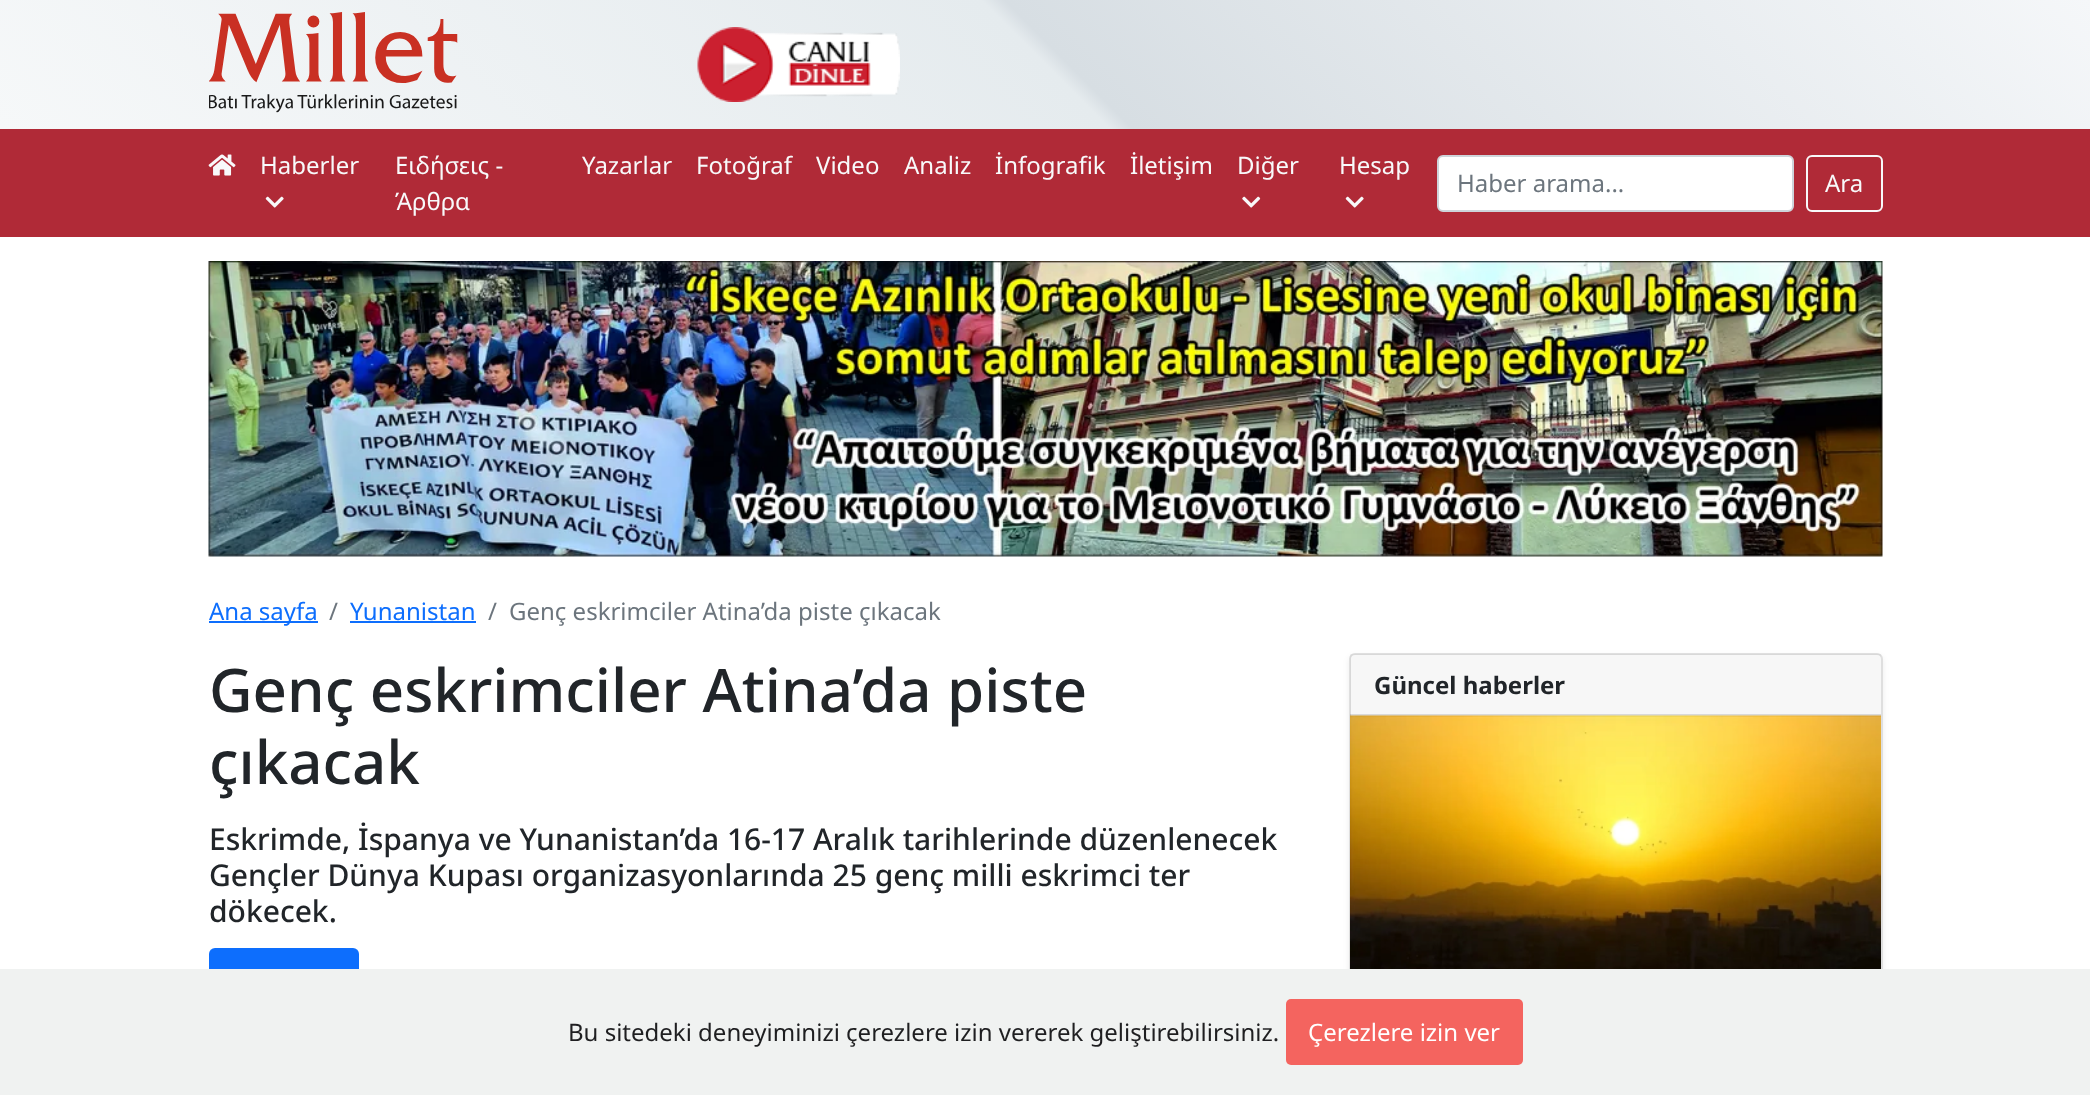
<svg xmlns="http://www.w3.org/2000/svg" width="2090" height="1095">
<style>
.a{font:24px Noto Sans;fill:#f8f9fa}
.b{font:24px Noto Sans;fill:#6c757d}
.c{font:24px Noto Sans;fill:#0d6efd}
.d{font:500 60px Noto Sans;fill:#212529}
.e{font:500 30px Noto Sans;fill:#212529}
.f{font:bold 24px Noto Sans;fill:#212529}
.g{font:24px Noto Sans;fill:#1f1f21}
.h{font:24px Noto Sans;fill:#fff}
</style>
<defs>
<linearGradient id="g1" gradientUnits="userSpaceOnUse" x1="491" y1="619" x2="1601" y2="-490"><stop offset="0" stop-color="#f6f8f9"/><stop offset="0.5" stop-color="#e5ebee"/><stop offset="0.51" stop-color="#d7dee3"/><stop offset="1" stop-color="#f5f7f9"/></linearGradient>
</defs>
<rect width="100%" height="100%" fill="#fff"/>
<path fill="url(#g1)" d="M0 0h2090v129H0z"/>
<image href="1.png" x="209" y="12" width="249" height="101"/>
<image href="2.png" x="697" y="27" width="203" height="75"/>
<path fill="#b02a37" d="M0 129h2090v108H0z"/>
<image href="3.png" x="208" y="154" width="28" height="22"/>
<image href="4.png" x="265" y="196" width="19" height="12"/>
<image href="5.png" x="1242" y="196" width="19" height="12"/>
<image href="4.png" x="1345" y="196" width="19" height="12"/>
<rect fill="#fff" stroke="#ced4da" stroke-width="2" x="1438" y="156" width="355" height="55" rx="5"/>
<rect fill="none" stroke="#f8f9fa" stroke-width="2" x="1807" y="156" width="75" height="55" rx="5"/>
<image href="6.png" x="208" y="261" width="1675" height="296"/>
<path fill="#0d6efd" d="M209 621h109v2H209z"/>
<path fill="#0d6efd" d="M350 621h126v2H350z"/>
<rect fill="#0d6efd" x="209" y="948" width="150" height="45" rx="6"/>
<rect fill="#00000012" filter="blur(3px)" x="1349" y="656" width="534" height="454" rx="6"/>
<rect fill="#fff" stroke="#dfdfdf" stroke-width="2" x="1350" y="654" width="532" height="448" rx="5"/>
<path fill="#00000008" d="M1350 654h531v62H1350z"/>
<path fill="#0000001f" d="M1350 714h531v2H1350z"/>
<image href="7.png" x="1350" y="715" width="531" height="254"/>
<path fill="#f0f2f1" d="M0 969h2090v126H0z"/>
<rect fill="#f4645f" x="1286" y="999" width="237" height="66" rx="5"/>
<text class="a" x="260" y="174">Haberler</text>
<text class="a" x="395" y="174">Ειδήσεις -</text>
<text class="a" x="395" y="210">Άρθρα</text>
<text class="a" x="582" y="174">Yazarlar</text>
<text class="a" x="696" y="174">Fotoğraf</text>
<text class="a" x="816" y="174">Video</text>
<text class="a" x="904" y="174">Analiz</text>
<text class="a" x="995" y="174">İnfografik</text>
<text class="a" x="1130" y="174">İletişim</text>
<text class="a" x="1237" y="174">Diğer</text>
<text class="a" x="1339" y="174">Hesap</text>
<text class="b" x="1457" y="192">Haber arama...</text>
<text class="a" x="1825" y="192">Ara</text>
<text class="c" x="209" y="620">Ana sayfa</text>
<text class="b" x="329" y="620">/</text>
<text class="c" x="350" y="620">Yunanistan</text>
<text class="b" x="488" y="620">/</text>
<text class="b" x="509" y="620">Genç eskrimciler Atina’da piste çıkacak</text>
<text class="d" x="209" y="712">Genç eskrimciler Atina’da piste</text>
<text class="d" x="209" y="784">çıkacak</text>
<text class="e" x="209" y="850">Eskrimde, İspanya ve Yunanistan’da 16-17 Aralık tarihlerinde düzenlenecek</text>
<text class="e" x="209" y="886">Gençler Dünya Kupası organizasyonlarında 25 genç milli eskrimci ter</text>
<text class="e" x="209" y="922">dökecek.</text>
<text class="f" x="1374" y="694">Güncel haberler</text>
<text class="g" x="568" y="1041">Bu sitedeki deneyiminizi çerezlere izin vererek geliştirebilirsiniz.</text>
<text class="h" x="1308" y="1041">Çerezlere izin ver</text>
</svg>
